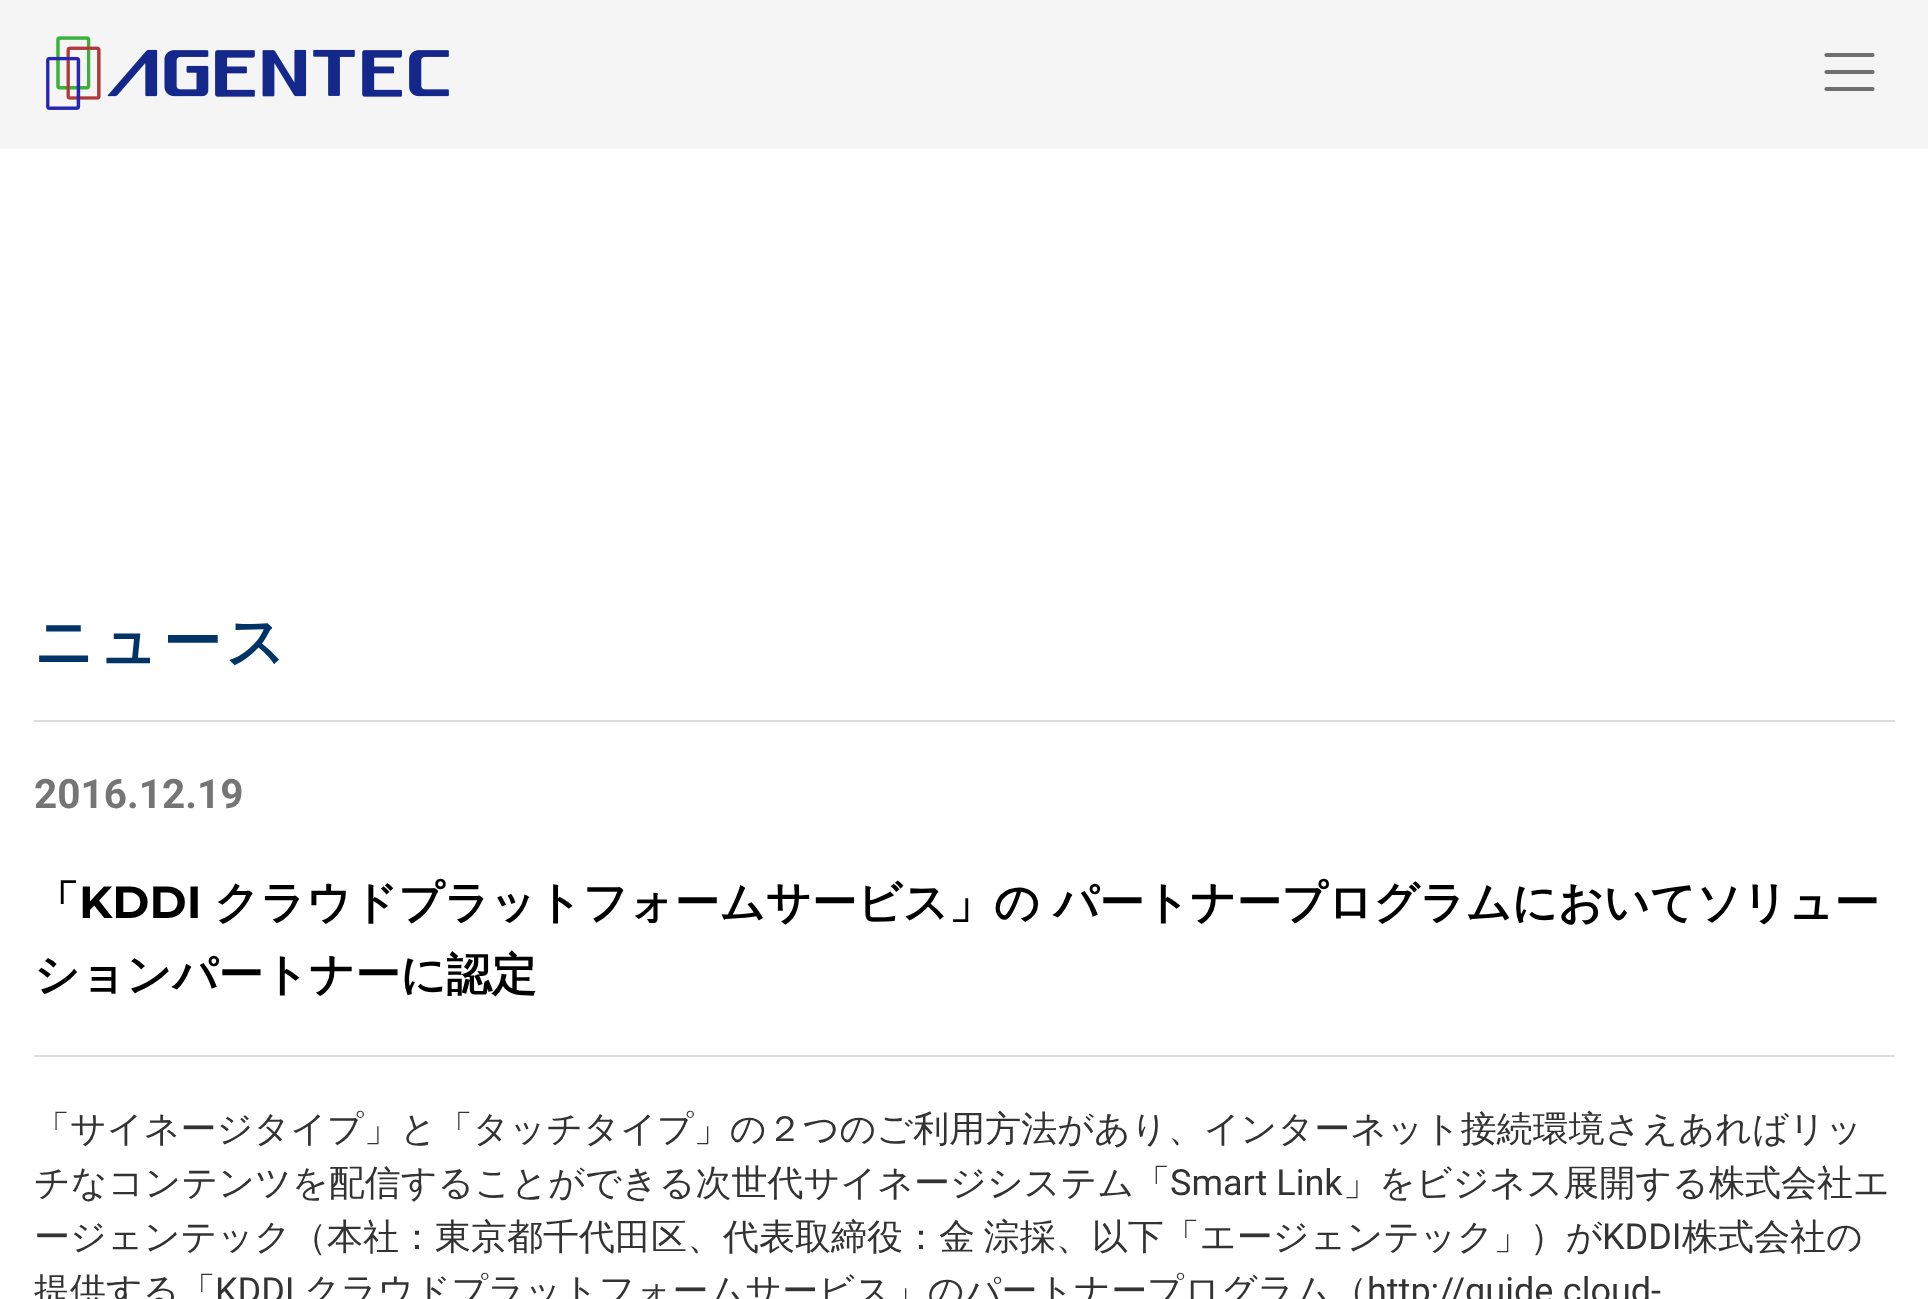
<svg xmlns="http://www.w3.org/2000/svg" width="1928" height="1299">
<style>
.a{font:bold 58.5px WenQuanYi Zen Hei;letter-spacing:4.5px;fill:#036}
.b{font:bold 40.5px Roboto;fill:#757575}
.c{font:bold 45px WenQuanYi Zen Hei;fill:#000}
.d{font:bold 45px Montserrat;fill:#000}
.e{font:500 36px WenQuanYi Zen Hei;fill:#333}
.f{font:36px Roboto;fill:#333}
</style>
<rect width="100%" height="100%" fill="#fff"/>
<path fill="#f5f5f5" d="M0 0h1928v149H0z"/>
<image href="1.png" x="46" y="36" width="403" height="74"/>
<path fill="none" stroke="#6e6e6e" stroke-width="4.2" stroke-linecap="round" d="M1826.5 55h46m-46 17h46m-46 17h46"/>
<path fill="#ddd" d="M34 720h1861v2H34z"/>
<path fill="#ddd" d="M34 1055h1861v2H34z"/>
<text class="a" x="34" y="662">ニュース</text>
<text class="b" x="34" y="808">2016.12.19</text>
<text class="c" x="34" y="918">「</text>
<text class="d" x="79" y="918">KDDI</text>
<text class="c" x="214" y="918">クラウドプラットフォームサービス」の パートナープログラムにおいてソリュー</text>
<text class="c" x="34" y="990">ションパートナーに認定</text>
<text class="e" x="34" y="1141">「サイネージタイプ」と「タッチタイプ」の２つのご利用方法があり、インターネット接続環境さえあればリッ</text>
<text class="e" x="34" y="1195">チなコンテンツを配信することができる次世代サイネージシステム「</text>
<text class="f" x="1170" y="1195">Smart Link</text>
<text class="e" x="1343" y="1195">」をビジネス展開する株式会社エ</text>
<text class="e" x="34" y="1249" word-spacing="-2">ージェンテック（本社：東京都千代田区、代表取締役：金 淙採、以下「エージェンテック」）が</text>
<text class="f" x="1602" y="1249">KDDI</text>
<text class="e" x="1682" y="1249">株式会社の</text>
<text class="e" x="34" y="1303">提供する「</text>
<text class="f" x="215" y="1303">KDDI</text>
<text class="e" x="304" y="1303">クラウドプラットフォームサービス」のパートナープログラム（</text>
<text class="f" x="1367" y="1303">http://guide.cloud-</text>
</svg>
